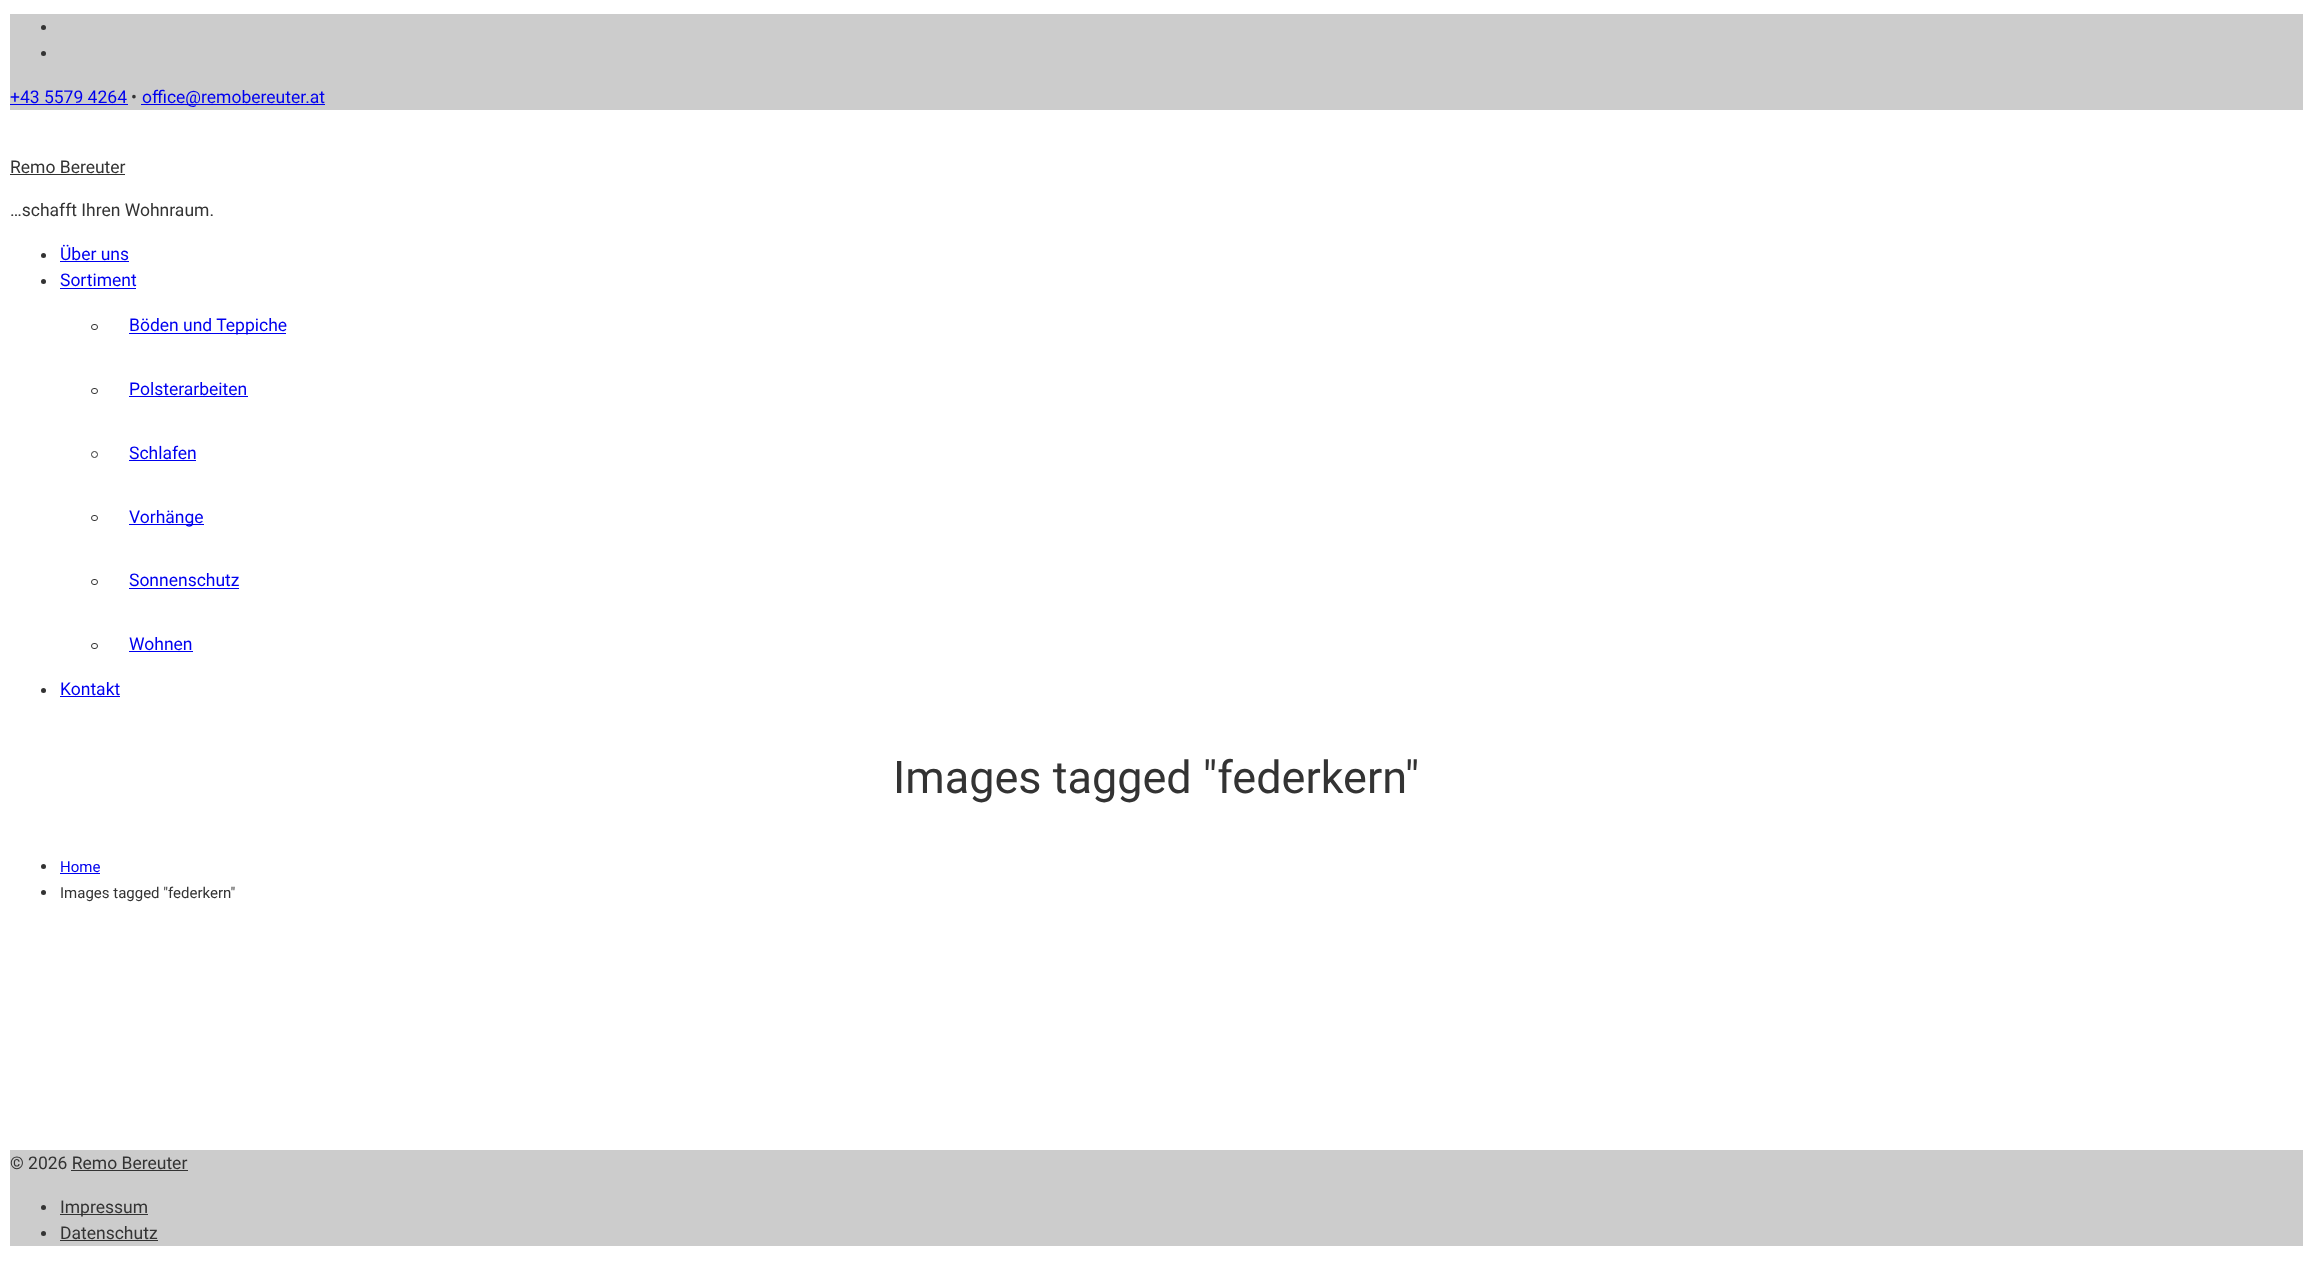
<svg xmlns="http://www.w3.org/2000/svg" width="2312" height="1276">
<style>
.a{font:17.5px Roboto;fill:#00e}
.b{font:17.5px Roboto;fill:#333}
.c{font:45px Roboto;fill:#333}
.d{font:15px Roboto;fill:#00e}
.e{font:15px Roboto;fill:#333}
</style>
<rect width="100%" height="100%" fill="#fff"/>
<path fill="#ccc" d="M10 14h2293v96H10z"/>
<circle fill="#333" cx="43.5" cy="27.5" r="2.5"/>
<circle fill="#333" cx="43.5" cy="53.5" r="2.5"/>
<path fill="#00e" d="M10 104h118v1H10z"/>
<path fill="#00e" d="M141 104h184v1H141z"/>
<path fill="#333" d="M10 174h115v1H10z"/>
<circle fill="#333" cx="43.5" cy="255.5" r="2.5"/>
<path fill="#00e" d="M60 261h69v1H60z"/>
<circle fill="#333" cx="43.5" cy="281.5" r="2.5"/>
<path fill="#00e" d="M60 288h76v1H60z"/>
<rect fill="none" stroke="#333" x="91.5" y="324.5" width="6" height="5" rx="2.5"/>
<path fill="#00e" d="M129 333h157v1H129z"/>
<rect fill="none" stroke="#333" x="91.5" y="388.5" width="6" height="5" rx="2.5"/>
<path fill="#00e" d="M129 396h119v1H129z"/>
<circle fill="none" stroke="#333" cx="94.5" cy="454.5" r="3"/>
<path fill="#00e" d="M129 460h67v1H129z"/>
<rect fill="none" stroke="#333" x="91.5" y="515.5" width="6" height="5" rx="2.5"/>
<path fill="#00e" d="M129 524h75v1H129z"/>
<rect fill="none" stroke="#333" x="91.5" y="579.5" width="6" height="5" rx="2.5"/>
<path fill="#00e" d="M129 588h110v1H129z"/>
<rect fill="none" stroke="#333" x="91.5" y="643.5" width="6" height="5" rx="2.5"/>
<path fill="#00e" d="M129 651h64v1H129z"/>
<circle fill="#333" cx="43.5" cy="690.5" r="2.5"/>
<path fill="#00e" d="M60 696h60v1H60z"/>
<circle fill="#333" cx="43.5" cy="866.5" r="2.5"/>
<path fill="#00e" d="M60 873h40v1H60z"/>
<circle fill="#333" cx="43.5" cy="892.5" r="2.5"/>
<path fill="#ccc" d="M10 1150h2293v96H10z"/>
<path fill="#333" d="M71 1170h117v1H71z"/>
<circle fill="#333" cx="43.5" cy="1207.5" r="2.5"/>
<path fill="#333" d="M60 1214h88v1H60z"/>
<circle fill="#333" cx="43.5" cy="1233.5" r="2.5"/>
<path fill="#333" d="M60 1240h98v1H60z"/>
<text class="a" x="10" y="103">+43 5579 4264</text>
<text class="b" x="131" y="103">•</text>
<text class="a" x="142" y="103">office@remobereuter.at</text>
<text class="b" x="10" y="173">Remo Bereuter</text>
<text class="b" x="10" y="216">…schafft Ihren Wohnraum.</text>
<text class="a" x="60" y="260">Über uns</text>
<text class="a" x="60" y="286">Sortiment</text>
<text class="a" x="129" y="331">Böden und Teppiche</text>
<text class="a" x="129" y="395">Polsterarbeiten</text>
<text class="a" x="129" y="459">Schlafen</text>
<text class="a" x="129" y="523">Vorhänge</text>
<text class="a" x="129" y="586">Sonnenschutz</text>
<text class="a" x="129" y="650">Wohnen</text>
<text class="a" x="60" y="695">Kontakt</text>
<text class="c" x="893" y="793">Images tagged "federkern"</text>
<text class="d" x="60" y="872">Home</text>
<text class="e" x="60" y="898">Images tagged "federkern"</text>
<text class="b" x="10" y="1169">© 2026 Remo Bereuter</text>
<text class="b" x="60" y="1213">Impressum</text>
<text class="b" x="60" y="1239">Datenschutz</text>
</svg>
